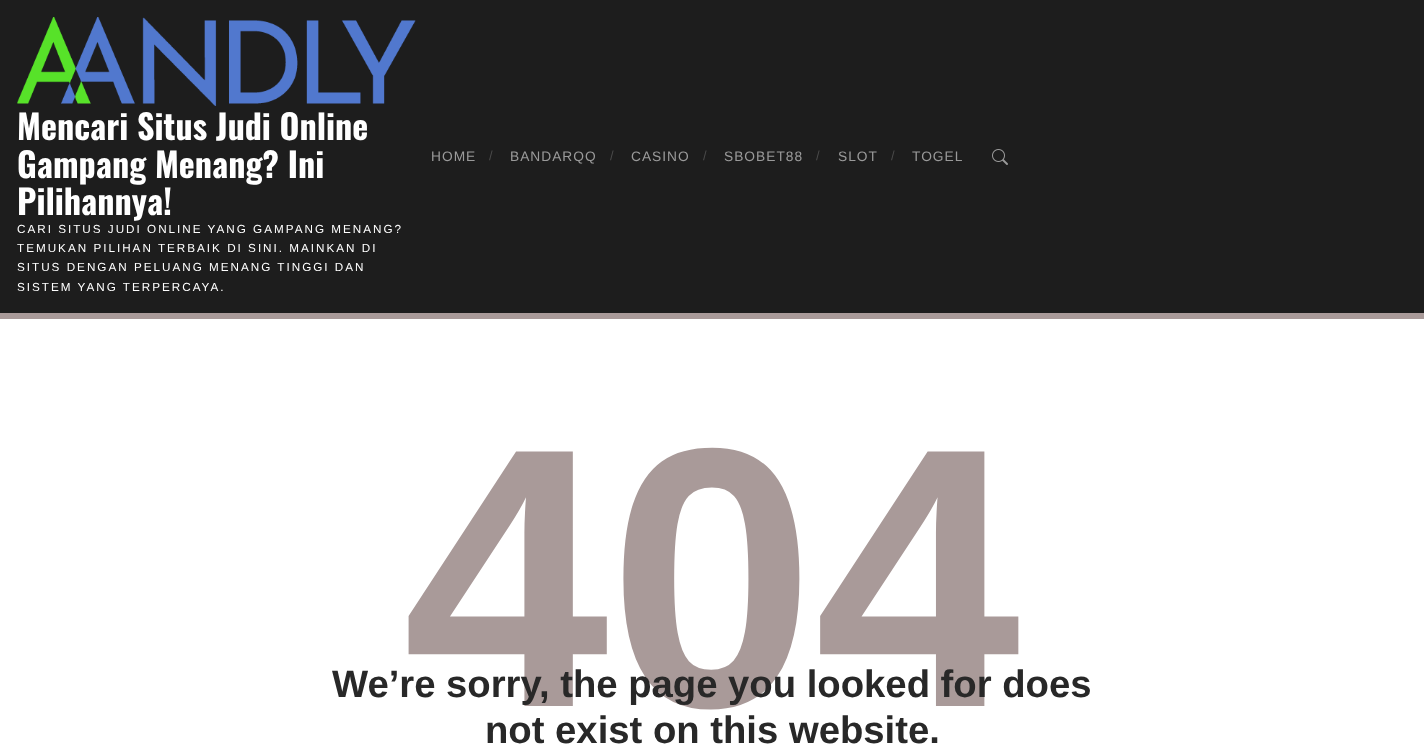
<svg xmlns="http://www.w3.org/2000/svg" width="1424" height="749">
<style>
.a{font:bold 34px Oswald;fill:#fff}
.b{font:11.7px Liberation Sans;letter-spacing:2px;fill:#fff}
.c{font:13.75px Liberation Sans;letter-spacing:1px;fill:#9a9a9a}
.d{font:13px Liberation Sans;fill:#4a4a4a}
.e{font:bold 370px Liberation Sans;fill:#a99a99}
.f{font:bold 38.25px Liberation Sans;fill:#282828}
</style>
<rect width="100%" height="100%" fill="#fff"/>
<path fill="#1d1d1d" d="M0 0h1424v313H0z"/>
<path fill="#a99a99" d="M0 313h1424v6H0z"/>
<image href="1.png" x="17" y="17" width="399" height="89"/>
<image href="2.png" x="992" y="149" width="16" height="16"/>
<text class="a" x="17" y="140">Mencari Situs Judi Online</text>
<text class="a" x="17" y="178">Gampang Menang? Ini</text>
<text class="a" x="17" y="215">Pilihannya!</text>
<text class="b" x="17" y="233">CARI SITUS JUDI ONLINE YANG GAMPANG MENANG?</text>
<text class="b" x="17" y="252">TEMUKAN PILIHAN TERBAIK DI SINI. MAINKAN DI</text>
<text class="b" x="17" y="271">SITUS DENGAN PELUANG MENANG TINGGI DAN</text>
<text class="b" x="17" y="291">SISTEM YANG TERPERCAYA.</text>
<text class="c" x="431" y="161">HOME</text>
<text class="d" x="489" y="160">/</text>
<text class="c" x="510" y="161">BANDARQQ</text>
<text class="d" x="610" y="160">/</text>
<text class="c" x="631" y="161">CASINO</text>
<text class="d" x="703" y="160">/</text>
<text class="c" x="724" y="161">SBOBET88</text>
<text class="d" x="816" y="160">/</text>
<text class="c" x="838" y="161">SLOT</text>
<text class="d" x="891" y="160">/</text>
<text class="c" x="912" y="161">TOGEL</text>
<text class="e" x="403" y="706">404</text>
<text class="f" x="332" y="697">We’re sorry, the page you looked for does</text>
<text class="f" x="485" y="743">not exist on this website.</text>
</svg>
